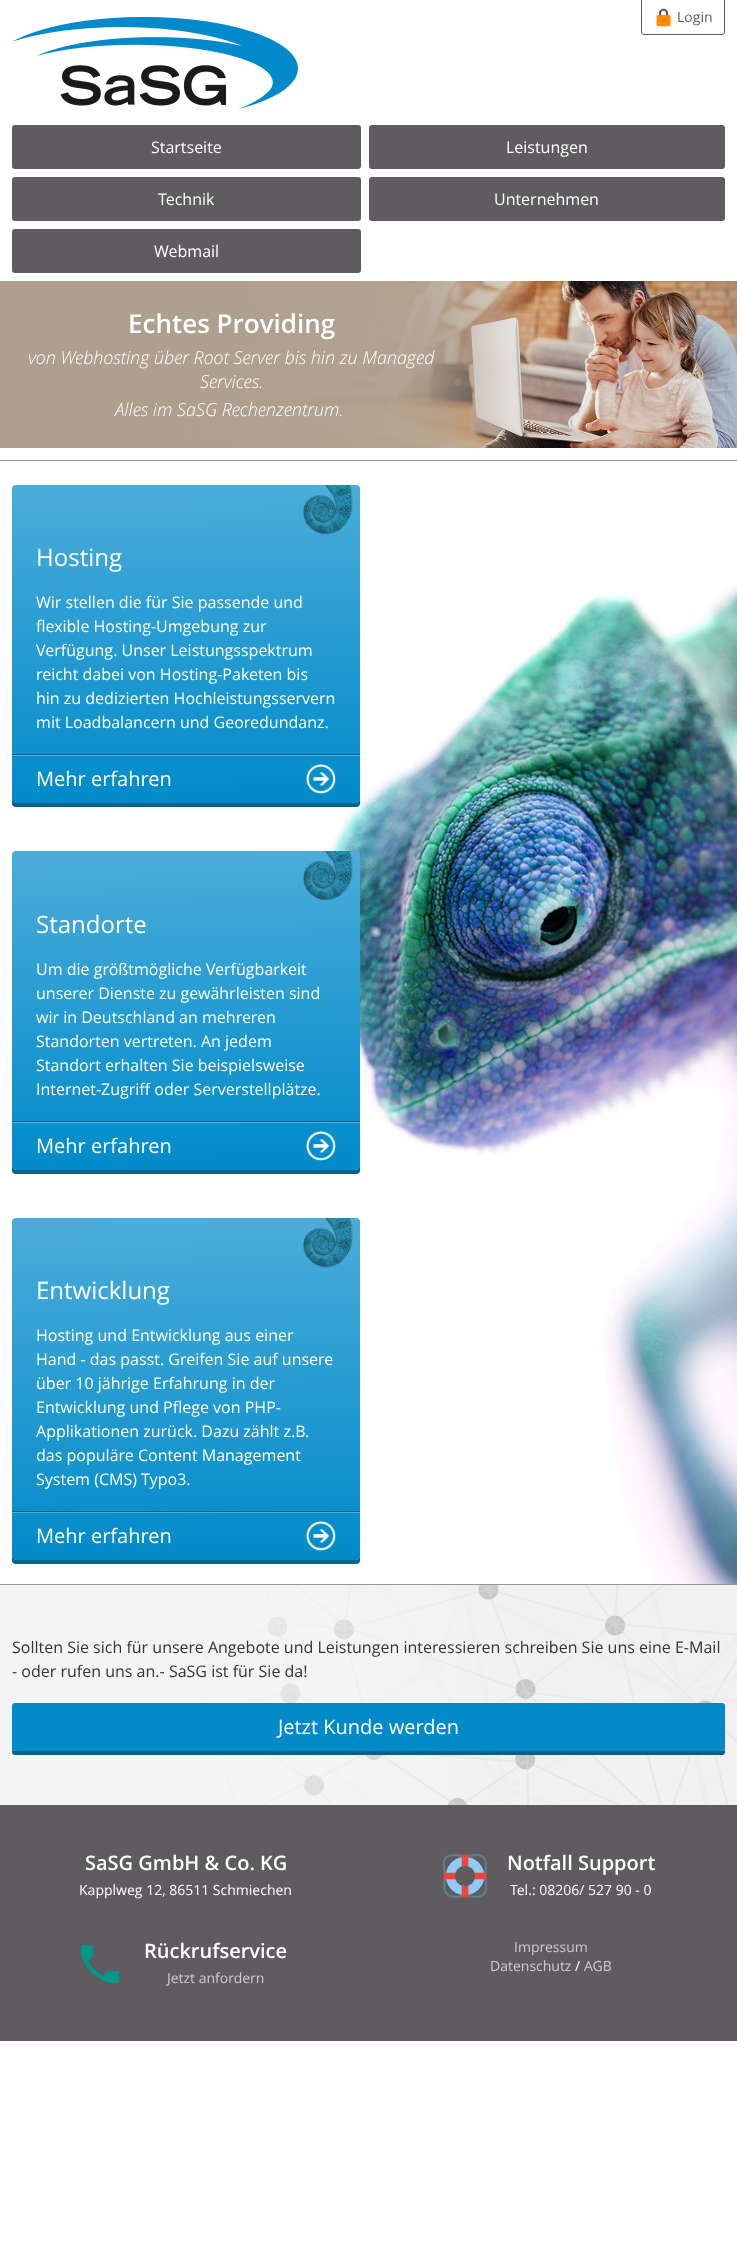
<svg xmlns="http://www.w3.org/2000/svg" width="737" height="2256">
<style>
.a{font:14px Open Sans;fill:#5e5c5f}
.b{font:16px Open Sans;fill:#fff}
.c{font:600 26px Open Sans;fill:#fff}
.d{font:italic 300 18px Open Sans;fill:#fff}
.e{font:24px Open Sans;fill:#fff}
.f{font:20px Open Sans;fill:#fff}
.g{font:16px Open Sans;fill:#333}
.h{font:600 20px Open Sans;fill:#fff}
.i{font:14px Open Sans;fill:#fff}
.j{font:14px Open Sans;fill:#cdcdcd}
</style>
<defs>
<linearGradient id="g1" gradientUnits="userSpaceOnUse" x1="0" y1="365" x2="548" y2="365"><stop offset="0" stop-color="#af9f8f" stop-opacity="0.8"/><stop offset="0.8" stop-color="#af9f8f" stop-opacity="0.8"/><stop offset="0.99" stop-color="#af9f8f" stop-opacity="0"/><stop offset="1" stop-color="#af9f8f" stop-opacity="0"/></linearGradient>
</defs>
<rect width="100%" height="100%" fill="#fff"/>
<image href="1.png" x="656" y="8" width="15" height="19"/>
<path fill="none" stroke="#5e5c5f" d="M641.5-.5h83v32.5c0 1.5-1 2.5-2.5 2.5h-78c-1.5 0-2.5-1-2.5-2.5z"/>
<image href="2.png" x="12" y="16" width="286" height="93"/>
<rect fill="#5e5c5f" x="12" y="125" width="349" height="44" rx="3"/>
<rect fill="#5e5c5f" x="369" y="125" width="356" height="44" rx="3"/>
<rect fill="#5e5c5f" x="12" y="177" width="349" height="44" rx="3"/>
<rect fill="#5e5c5f" x="369" y="177" width="356" height="44" rx="3"/>
<rect fill="#5e5c5f" x="12" y="229" width="349" height="44" rx="3"/>
<path fill="#af9f8f" d="M0 281h177v167H0z"/>
<image href="3.png" x="177" y="281" width="560" height="167"/>
<path fill="url(#g1)" d="M177 281h363v167H177z"/>
<image href="4.png" x="325" y="584" width="412" height="1000"/>
<path fill="#979797" d="M0 460h737v1H0z"/>
<image href="5.png" x="12" y="485" width="348" height="318"/>
<path fill="#00628f" d="M12 799c0 3-1 7 3 8h342c4-1 3-5 3-8c0 2-2 4-4 4h-340c-2 0-4-2-4-4z"/>
<image href="6.png" x="306" y="764" width="30" height="30"/>
<path fill="#52afda" d="M12 755h348v1H12z"/>
<path fill="#00628f" d="M12 754h348v1H12z"/>
<image href="7.png" x="12" y="851" width="348" height="319"/>
<path fill="#00628f" d="M12 1166c0 3-1 7 3 8h342c4-1 3-5 3-8c0 2-2 4-4 4h-340c-2 0-4-2-4-4z"/>
<image href="8.png" x="306" y="1131" width="30" height="30"/>
<path fill="#52afda" d="M12 1122h348v1H12z"/>
<path fill="#00628f" d="M12 1121h348v1H12z"/>
<image href="9.png" x="12" y="1218" width="348" height="342"/>
<path fill="#00628f" d="M12 1556c0 3-1 7 3 8h342c4-1 3-5 3-8c0 2-2 4-4 4h-340c-2 0-4-2-4-4z"/>
<image href="10.png" x="306" y="1521" width="30" height="30"/>
<path fill="#52afda" d="M12 1512h348v1H12z"/>
<path fill="#00628f" d="M12 1511h348v1H12z"/>
<path fill="#f4f4f4" d="M0 1585h203v220H0z"/>
<image href="11.png" x="203" y="1585" width="534" height="220"/>
<path fill="#979797" d="M0 1584h737v1H0z"/>
<path fill="#00628f" d="M12 1748v4c0 2 1 3 3 3h707c2 0 3-1 3-3v-4c0 2-1 3-3 3h-707c-2 0-3-1-3-3z"/>
<rect fill="#008ac9" x="12" y="1703" width="713" height="48" rx="3"/>
<path fill="#5e5c5f" d="M0 1805h737v236H0z"/>
<image href="12.png" x="442" y="1854" width="45" height="44"/>
<image href="13.png" x="81" y="1945" width="38" height="38"/>
<text class="a" x="677" y="22">Login</text>
<text class="b" x="151" y="153">Startseite</text>
<text class="b" x="506" y="153">Leistungen</text>
<text class="b" x="158" y="205">Technik</text>
<text class="b" x="494" y="205">Unternehmen</text>
<text class="b" x="154" y="257">Webmail</text>
<text class="c" x="128" y="333">Echtes Providing</text>
<text class="d" x="28" y="364">von Webhosting über Root Server bis hin zu Managed</text>
<text class="d" x="200" y="388">Services.</text>
<text class="d" x="115" y="416">Alles im SaSG Rechenzentrum.</text>
<text class="e" x="36" y="566">Hosting</text>
<text class="b" x="36" y="608">Wir stellen die für Sie passende und</text>
<text class="b" x="36" y="632">flexible Hosting-Umgebung zur</text>
<text class="b" x="36" y="656">Verfügung. Unser Leistungsspektrum</text>
<text class="b" x="36" y="680">reicht dabei von Hosting-Paketen bis</text>
<text class="b" x="36" y="704">hin zu dedizierten Hochleistungsservern</text>
<text class="b" x="36" y="728">mit Loadbalancern und Georedundanz.</text>
<text class="f" x="36" y="786">Mehr erfahren</text>
<text class="e" x="36" y="933">Standorte</text>
<text class="b" x="36" y="975">Um die größtmögliche Verfügbarkeit</text>
<text class="b" x="36" y="999">unserer Dienste zu gewährleisten sind</text>
<text class="b" x="36" y="1023">wir in Deutschland an mehreren</text>
<text class="b" x="36" y="1047">Standorten vertreten. An jedem</text>
<text class="b" x="36" y="1071">Standort erhalten Sie beispielsweise</text>
<text class="b" x="36" y="1095">Internet-Zugriff oder Serverstellplätze.</text>
<text class="f" x="36" y="1153">Mehr erfahren</text>
<text class="e" x="36" y="1299">Entwicklung</text>
<text class="b" x="36" y="1341">Hosting und Entwicklung aus einer</text>
<text class="b" x="36" y="1365">Hand - das passt. Greifen Sie auf unsere</text>
<text class="b" x="36" y="1389">über 10 jährige Erfahrung in der</text>
<text class="b" x="36" y="1413">Entwicklung und Pflege von PHP-</text>
<text class="b" x="36" y="1437">Applikationen zurück. Dazu zählt z.B.</text>
<text class="b" x="36" y="1461">das populäre Content Management</text>
<text class="b" x="36" y="1485">System (CMS) Typo3.</text>
<text class="f" x="36" y="1543">Mehr erfahren</text>
<text class="g" x="12" y="1653">Sollten Sie sich für unsere Angebote und Leistungen interessieren schreiben Sie uns eine E-Mail</text>
<text class="g" x="12" y="1677">- oder rufen uns an.- SaSG ist für Sie da!</text>
<text class="f" x="278" y="1734">Jetzt Kunde werden</text>
<text class="h" x="85" y="1870">SaSG GmbH &amp; Co. KG</text>
<text class="i" x="79" y="1895">Kapplweg 12, 86511 Schmiechen</text>
<text class="h" x="507" y="1870">Notfall Support</text>
<text class="i" x="510" y="1895">Tel.: 08206/ 527 90 - 0</text>
<text class="h" x="144" y="1958">Rückrufservice</text>
<text class="j" x="167" y="1983">Jetzt anfordern</text>
<text class="j" x="514" y="1952">Impressum</text>
<text class="j" x="490" y="1971">Datenschutz</text>
<text class="i" x="575" y="1971">/</text>
<text class="j" x="584" y="1971">AGB</text>
</svg>
